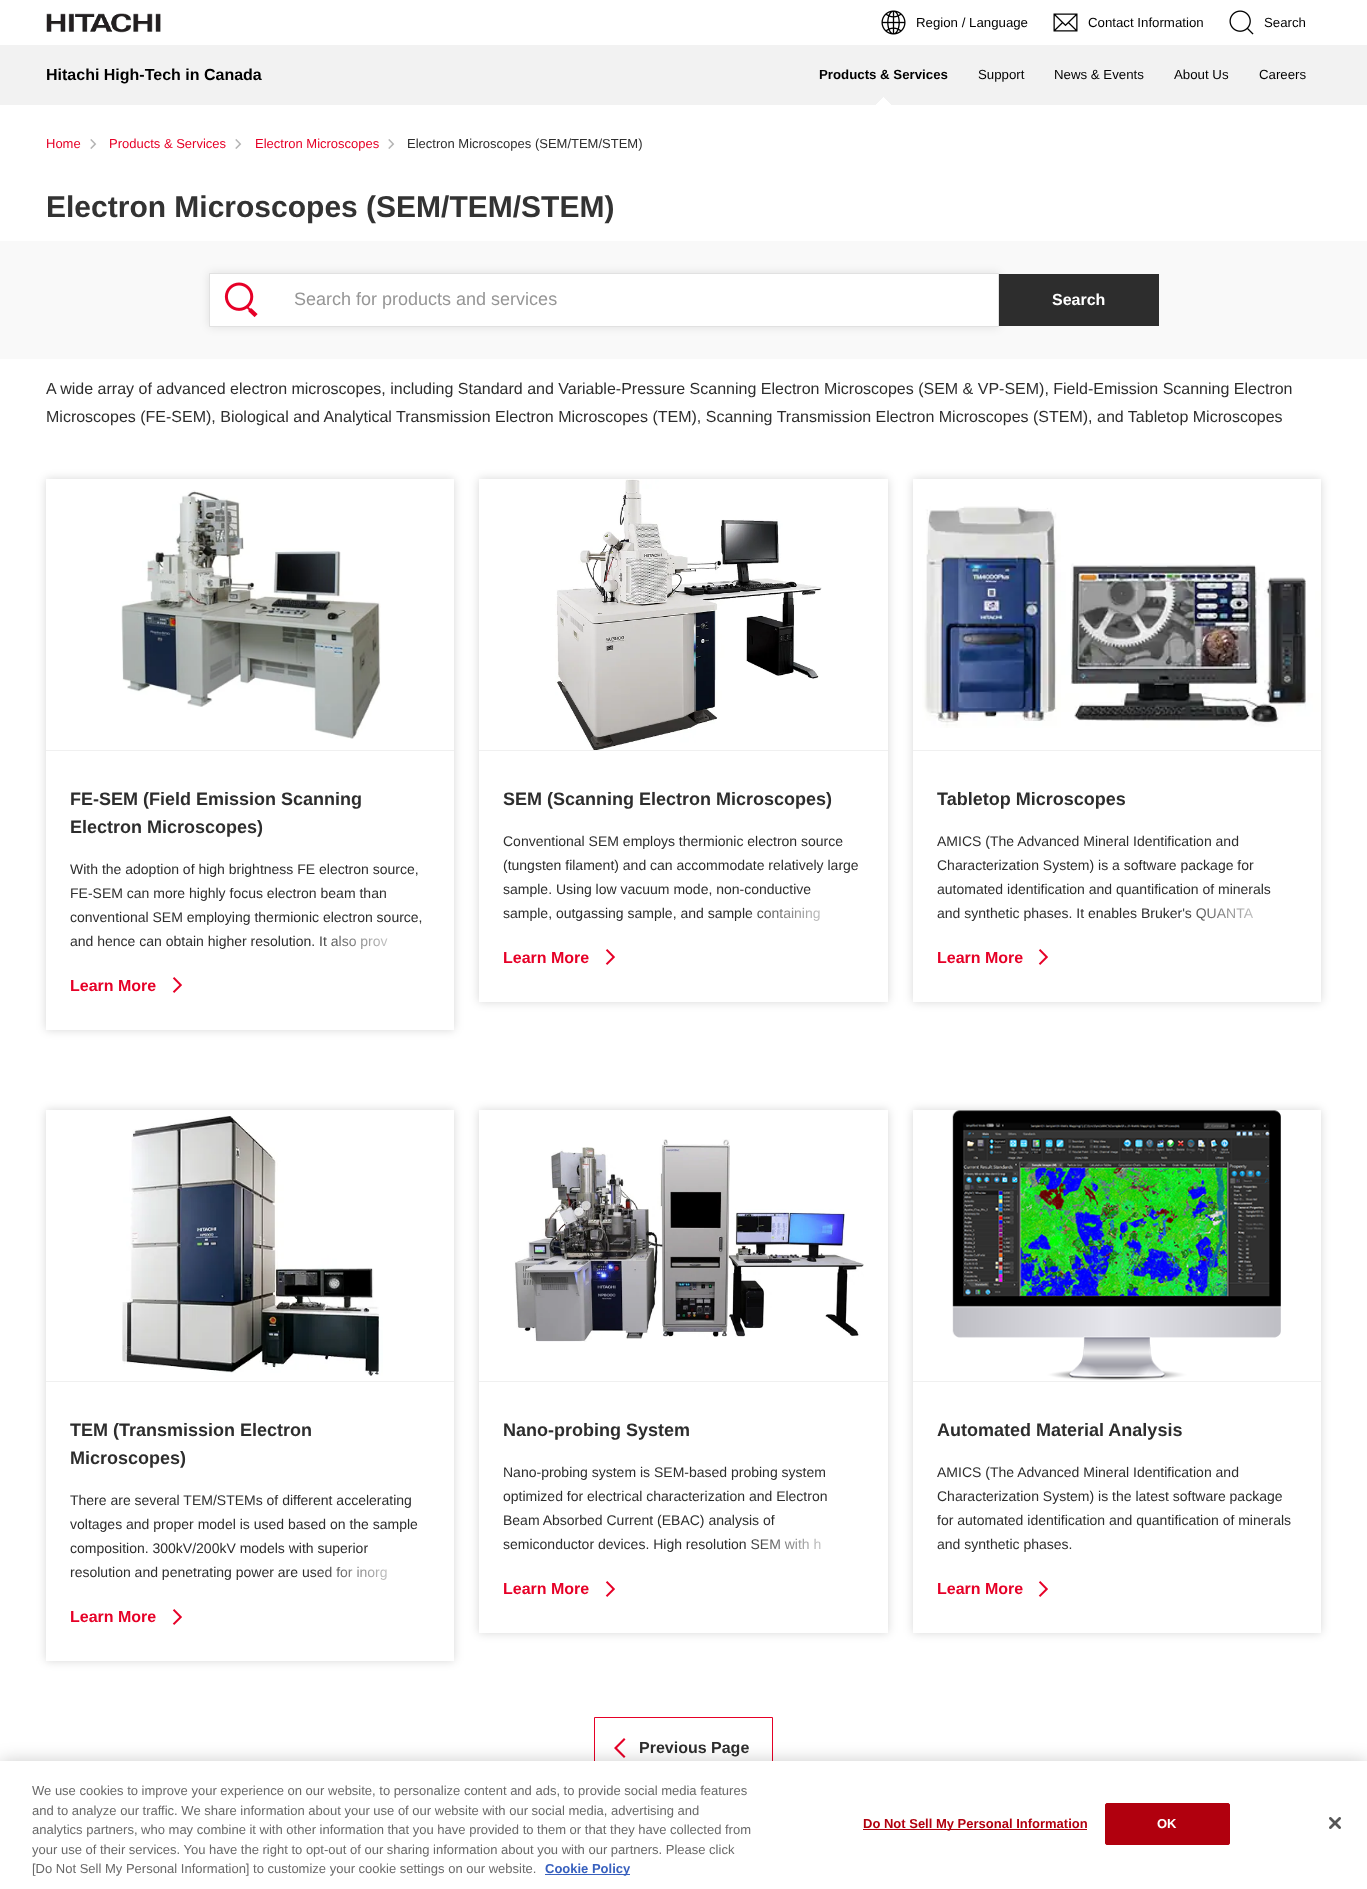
<svg xmlns="http://www.w3.org/2000/svg" width="1367" height="1889">
<style>
.a{font:13.25px Liberation Sans;fill:#000}
.b{font:bold 16px Liberation Sans;fill:#000}
.c{font:bold 13.25px Liberation Sans;fill:#000}
.d{font:13px Liberation Sans;fill:#e60027}
.e{font:13px Liberation Sans;fill:#2d2d2d}
.f{font:bold 30px Liberation Sans;fill:#333}
.g{font:18px Liberation Sans;fill:#969696}
.h{font:bold 16px Liberation Sans;fill:#fff}
.i{font:16px Liberation Sans;fill:#2d2d2d}
.j{font:bold 18px Liberation Sans;fill:#2d2d2d}
.k{font:14px Liberation Sans;fill:#2d2d2d}
.l{font:bold 16px Liberation Sans;fill:#e60027}
.m{font:bold 16px Liberation Sans;fill:#2d2d2d}
.n{font:13px Liberation Sans;fill:#696969}
.o{font:bold 13px Liberation Sans;fill:#3860be}
.p{font:bold 13px Liberation Sans;fill:#b1000e}
.q{font:bold 13px Liberation Sans;fill:#fff}
</style>
<defs>
<clipPath id="clip1"><path d="M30 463h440v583h-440zm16 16h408v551h-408z" clip-rule="evenodd"/></clipPath>
<clipPath id="clip2"><path d="M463 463h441v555h-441zm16 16h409v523h-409z" clip-rule="evenodd"/></clipPath>
<clipPath id="clip3"><path d="M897 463h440v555h-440zm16 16h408v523h-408z" clip-rule="evenodd"/></clipPath>
<clipPath id="clip4"><path d="M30 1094h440v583h-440zm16 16h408v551h-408z" clip-rule="evenodd"/></clipPath>
<clipPath id="clip5"><path d="M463 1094h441v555h-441zm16 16h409v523h-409z" clip-rule="evenodd"/></clipPath>
<clipPath id="clip6"><path d="M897 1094h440v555h-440zm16 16h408v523h-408z" clip-rule="evenodd"/></clipPath>
<linearGradient id="g1" gradientUnits="userSpaceOnUse" x1="310" y1="942" x2="430" y2="942"><stop offset="0" stop-color="#fff" stop-opacity="0"/><stop offset="0.9" stop-color="#fff"/><stop offset="1" stop-color="#fff"/></linearGradient>
<linearGradient id="g2" gradientUnits="userSpaceOnUse" x1="744" y1="914" x2="864" y2="914"><stop offset="0" stop-color="#fff" stop-opacity="0"/><stop offset="0.9" stop-color="#fff"/><stop offset="1" stop-color="#fff"/></linearGradient>
<linearGradient id="g3" gradientUnits="userSpaceOnUse" x1="1177" y1="914" x2="1297" y2="914"><stop offset="0" stop-color="#fff" stop-opacity="0"/><stop offset="0.9" stop-color="#fff"/><stop offset="1" stop-color="#fff"/></linearGradient>
<linearGradient id="g4" gradientUnits="userSpaceOnUse" x1="310" y1="1573" x2="430" y2="1573"><stop offset="0" stop-color="#fff" stop-opacity="0"/><stop offset="0.9" stop-color="#fff"/><stop offset="1" stop-color="#fff"/></linearGradient>
<linearGradient id="g5" gradientUnits="userSpaceOnUse" x1="744" y1="1545" x2="864" y2="1545"><stop offset="0" stop-color="#fff" stop-opacity="0"/><stop offset="0.9" stop-color="#fff"/><stop offset="1" stop-color="#fff"/></linearGradient>
</defs>
<rect width="100%" height="100%" fill="#fff"/>
<image href="1.png" x="46" y="13" width="115" height="20"/>
<image href="2.png" x="881" y="10" width="25" height="25"/>
<image href="3.png" x="1053" y="13" width="25" height="19"/>
<image href="4.png" x="1229" y="10" width="25" height="25"/>
<path fill="#f2f2f2" d="M0 45h1367v60H0z"/>
<image href="5.png" x="876" y="97" width="15" height="8"/>
<image href="6.png" x="90" y="139" width="7" height="10"/>
<image href="6.png" x="235" y="139" width="7" height="10"/>
<image href="6.png" x="388" y="139" width="7" height="10"/>
<path fill="#f9f9f9" d="M0 241h1367v118H0z"/>
<path fill="#0000001a" filter="blur(5px)" d="M209 273h790v54H209z"/>
<path fill="#fff" d="M210 274h788v52H210z"/>
<image href="7.png" x="224" y="282" width="34" height="36"/>
<path fill="none" stroke="#e1e1e1" d="M209.5 273.5h789v53H209.5z"/>
<path fill="#2d2d2d" d="M999 274h160v52H999z"/>
<g clip-path="url(#clip1)">
<path fill="#00000029" filter="blur(5px)" d="M46 479h408v551H46z"/>
</g>
<path fill="#f0f0f0" d="M46 750h408v1H46z"/>
<image href="8.png" x="121" y="490" width="260" height="249"/>
<image href="9.png" x="172" y="977" width="10" height="16"/>
<g clip-path="url(#clip2)">
<path fill="#00000029" filter="blur(5px)" d="M479 479h409v523H479z"/>
</g>
<path fill="#f0f0f0" d="M479 750h409v1H479z"/>
<image href="10.png" x="555" y="479" width="267" height="271"/>
<image href="9.png" x="605" y="949" width="10" height="16"/>
<g clip-path="url(#clip3)">
<path fill="#00000029" filter="blur(5px)" d="M913 479h408v523H913z"/>
</g>
<path fill="#f0f0f0" d="M913 750h408v1H913z"/>
<image href="11.png" x="922" y="506" width="399" height="222"/>
<image href="9.png" x="1038" y="949" width="10" height="16"/>
<g clip-path="url(#clip4)">
<path fill="#00000029" filter="blur(5px)" d="M46 1110h408v551H46z"/>
</g>
<path fill="#f0f0f0" d="M46 1381h408v1H46z"/>
<image href="12.png" x="122" y="1116" width="261" height="260"/>
<image href="9.png" x="172" y="1609" width="10" height="16"/>
<g clip-path="url(#clip5)">
<path fill="#00000029" filter="blur(5px)" d="M479 1110h409v523H479z"/>
</g>
<path fill="#f0f0f0" d="M479 1381h409v1H479z"/>
<image href="13.png" x="514" y="1139" width="350" height="203"/>
<image href="9.png" x="605" y="1581" width="10" height="16"/>
<g clip-path="url(#clip6)">
<path fill="#00000029" filter="blur(5px)" d="M913 1110h408v523H913z"/>
</g>
<path fill="#f0f0f0" d="M913 1381h408v1H913z"/>
<image href="14.png" x="952" y="1110" width="329" height="270"/>
<image href="9.png" x="1038" y="1581" width="10" height="16"/>
<path fill="none" stroke="#e60027" d="M594.5 1717.5h178v60H594.5z"/>
<path fill="#e60027" d="M624 1738l1.5 1.5l-8.5 8.5l8.5 8.5l-1.5 1.5l-10-10z"/>
<path fill="#00000033" filter="blur(9px)" d="M0 1761h1367v128H0z"/>
<path fill="#fff" d="M0 1761h1367v128H0z"/>
<path fill="#3860be" d="M545 1874h85v1H545z"/>
<path fill="#b1000e" d="M863 1829h224v1H863z"/>
<rect fill="#b1000e" stroke="#b1000e" x="1105.5" y="1803.5" width="124" height="41" rx="1.5"/>
<image href="15.png" x="1329" y="1817" width="12" height="12"/>
<text class="a" x="916" y="27">Region / Language</text>
<text class="a" x="1088" y="27">Contact Information</text>
<text class="a" x="1264" y="27">Search</text>
<text class="b" x="46" y="80">Hitachi High-Tech in Canada</text>
<text class="c" x="819" y="79">Products &amp; Services</text>
<text class="a" x="978" y="79">Support</text>
<text class="a" x="1054" y="79">News &amp; Events</text>
<text class="a" x="1174" y="79">About Us</text>
<text class="a" x="1259" y="79">Careers</text>
<text class="d" x="46" y="148">Home</text>
<text class="d" x="109" y="148">Products &amp; Services</text>
<text class="d" x="255" y="148">Electron Microscopes</text>
<text class="e" x="407" y="148">Electron Microscopes (SEM/TEM/STEM)</text>
<text class="f" x="46" y="217">Electron Microscopes (SEM/TEM/STEM)</text>
<text class="g" x="294" y="305">Search for products and services</text>
<text class="h" x="1052" y="305">Search</text>
<text class="i" x="46" y="394">A wide array of advanced electron microscopes, including Standard and Variable-Pressure Scanning Electron Microscopes (SEM &amp; VP-SEM), Field-Emission Scanning Electron</text>
<text class="i" x="46" y="422">Microscopes (FE-SEM), Biological and Analytical Transmission Electron Microscopes (TEM), Scanning Transmission Electron Microscopes (STEM), and Tabletop Microscopes</text>
<text class="j" x="70" y="805">FE-SEM (Field Emission Scanning</text>
<text class="j" x="70" y="833">Electron Microscopes)</text>
<text class="k" x="70" y="874">With the adoption of high brightness FE electron source,</text>
<text class="k" x="70" y="898">FE-SEM can more highly focus electron beam than</text>
<text class="k" x="70" y="922">conventional SEM employing thermionic electron source,</text>
<text class="k" x="70" y="946">and hence can obtain higher resolution. It also prov</text>
<path fill="url(#g1)" d="M313 935h75v14H313z"/>
<text class="l" x="70" y="991">Learn More</text>
<text class="j" x="503" y="805">SEM (Scanning Electron Microscopes)</text>
<text class="k" x="503" y="846">Conventional SEM employs thermionic electron source</text>
<text class="k" x="503" y="870">(tungsten filament) and can accommodate relatively large</text>
<text class="k" x="503" y="894">sample. Using low vacuum mode, non-conductive</text>
<text class="k" x="503" y="918">sample, outgassing sample, and sample containing</text>
<path fill="url(#g2)" d="M746 907h74v14H746z"/>
<text class="l" x="503" y="963">Learn More</text>
<text class="j" x="937" y="805">Tabletop Microscopes</text>
<text class="k" x="937" y="846">AMICS (The Advanced Mineral Identification and</text>
<text class="k" x="937" y="870">Characterization System) is a software package for</text>
<text class="k" x="937" y="894">automated identification and quantification of minerals</text>
<text class="k" x="937" y="918">and synthetic phases. It enables Bruker's QUANTA</text>
<path fill="url(#g3)" d="M1179 908h74v13H1179z"/>
<text class="l" x="937" y="963">Learn More</text>
<text class="j" x="70" y="1436">TEM (Transmission Electron</text>
<text class="j" x="70" y="1464">Microscopes)</text>
<text class="k" x="70" y="1505">There are several TEM/STEMs of different accelerating</text>
<text class="k" x="70" y="1529">voltages and proper model is used based on the sample</text>
<text class="k" x="70" y="1553">composition. 300kV/200kV models with superior</text>
<text class="k" x="70" y="1577">resolution and penetrating power are used for inorg</text>
<path fill="url(#g4)" d="M312 1566h75v14H312z"/>
<text class="l" x="70" y="1622">Learn More</text>
<text class="j" x="503" y="1436">Nano-probing System</text>
<text class="k" x="503" y="1477">Nano-probing system is SEM-based probing system</text>
<text class="k" x="503" y="1501">optimized for electrical characterization and Electron</text>
<text class="k" x="503" y="1525">Beam Absorbed Current (EBAC) analysis of</text>
<text class="k" x="503" y="1549">semiconductor devices. High resolution SEM with h</text>
<path fill="url(#g5)" d="M751 1538h70v12H751z"/>
<text class="l" x="503" y="1594">Learn More</text>
<text class="j" x="937" y="1436">Automated Material Analysis</text>
<text class="k" x="937" y="1477">AMICS (The Advanced Mineral Identification and</text>
<text class="k" x="937" y="1501">Characterization System) is the latest software package</text>
<text class="k" x="937" y="1525">for automated identification and quantification of minerals</text>
<text class="k" x="937" y="1549">and synthetic phases.</text>
<text class="l" x="937" y="1594">Learn More</text>
<text class="m" x="639" y="1753">Previous Page</text>
<text class="n" x="32" y="1795">We use cookies to improve your experience on our website, to personalize content and ads, to provide social media features</text>
<text class="n" x="32" y="1815">and to analyze our traffic. We share information about your use of our website with our social media, advertising and</text>
<text class="n" x="32" y="1834">analytics partners, who may combine it with other information that you have provided to them or that they have collected from</text>
<text class="n" x="32" y="1854">your use of their services. You have the right to opt-out of our sharing information about you with our partners. Please click</text>
<text class="n" x="32" y="1873">[Do Not Sell My Personal Information] to customize your cookie settings on our website.</text>
<text class="o" x="545" y="1873">Cookie Policy</text>
<text class="p" x="863" y="1828">Do Not Sell My Personal Information</text>
<text class="q" x="1157" y="1828">OK</text>
</svg>
